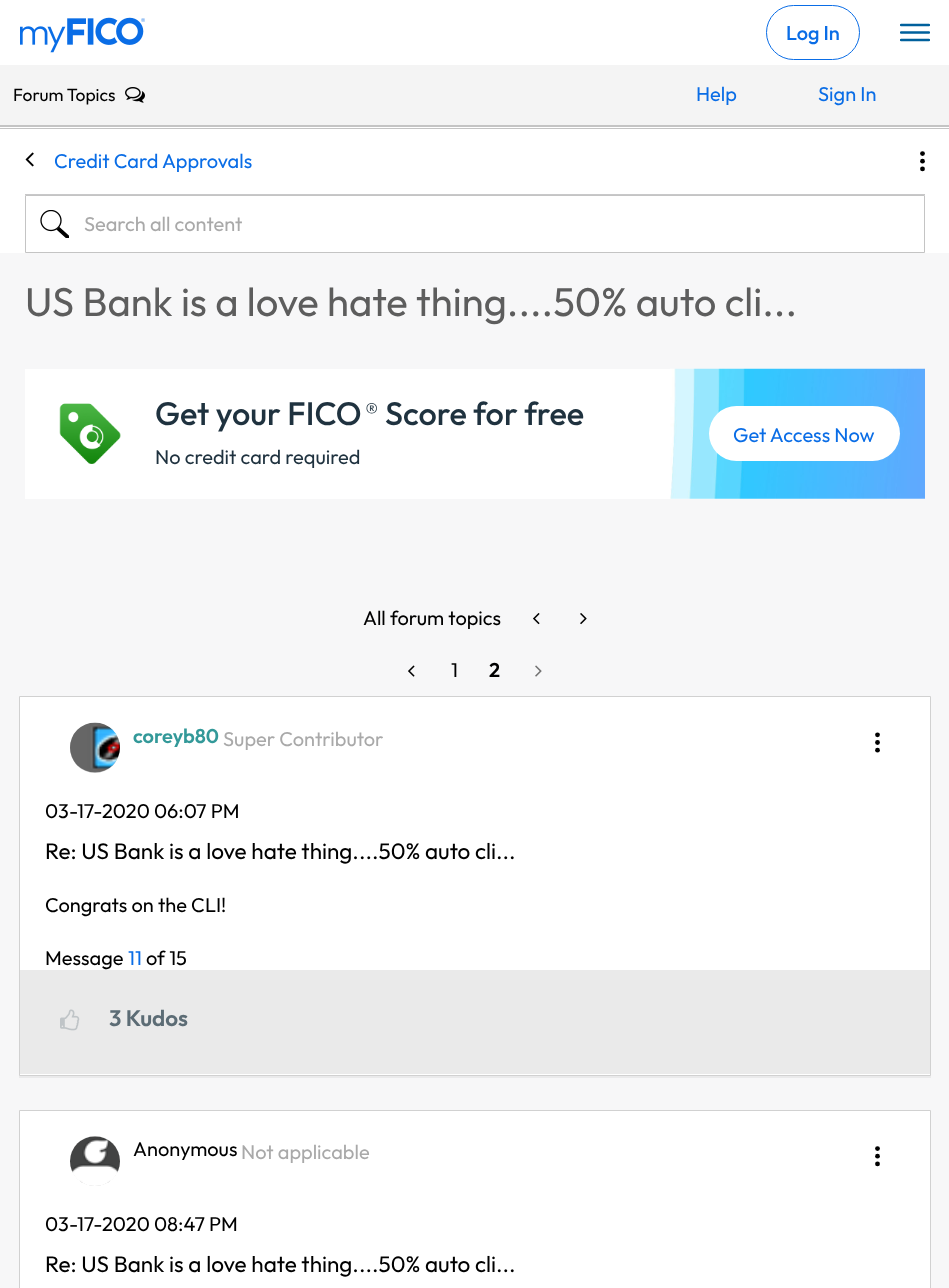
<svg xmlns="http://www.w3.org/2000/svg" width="949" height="1288">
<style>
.a{font:500 20px Outfit;fill:#0a6de6}
.b{font:17.5px Outfit;fill:#000}
.c{font:20px Outfit;fill:#0a6de6}
.d{font:20px Outfit;fill:#a9a9a9}
.e{font:40px Outfit;fill:#5d5d5d}
.f{font:500 32.5px Outfit;fill:#1f323f}
.g{font:500 24px Outfit;fill:#1f323f}
.h{font:20px Outfit;fill:#1f323f}
.i{font:20px Outfit;fill:#000}
.j{font:600 20px Outfit;fill:#000}
.k{font:600 20px Outfit;fill:#399}
.l{font:22.5px Outfit;fill:#000}
.m{font:600 22.5px Outfit;fill:#5c6c75}
</style>
<defs>
<clipPath id="clip1"><path d="M900 18h30v30H900z"/></clipPath>
<clipPath id="clip2"><path d="M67 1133h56v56h-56zm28 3c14 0 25 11 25 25c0 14-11 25-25 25c-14 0-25-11-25-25c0-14 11-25 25-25z" clip-rule="evenodd"/></clipPath>
</defs>
<rect width="100%" height="100%" fill="#f7f7f8"/>
<path fill="#fff" d="M0 0h949v65H0z"/>
<image href="1.png" x="20" y="17" width="125" height="36"/>
<rect fill="none" stroke="#0a6de6" x="766.5" y="5.5" width="93" height="54" rx="27"/>
<g clip-path="url(#clip1)">
<path fill="none" stroke="#00609c" stroke-width="2.5" stroke-linecap="round" d="M901 32.5h28m-28 7.5h28m-28-15h28"/>
</g>
<path fill="#fff" d="M0 127h949v126H0z"/>
<path fill="#f4f4f4" d="M0 65h949v60H0z"/>
<path fill="#c4c4c4" d="M0 125h949v2H0z"/>
<image href="2.png" x="125" y="87" width="20" height="16"/>
<path fill="#c4c4c4" d="M0 128h949v1H0z"/>
<image href="3.png" x="25" y="152" width="9" height="15"/>
<circle fill="#000" cx="922.5" cy="153.6" r="2.4"/>
<circle fill="#000" cx="922.5" cy="161.2" r="2.4"/>
<circle fill="#000" cx="922.5" cy="168.9" r="2.4"/>
<path fill="#c8c8c9" d="M25 194h900v1H25z"/>
<path fill="none" stroke="#c4c4c4" d="M25.5 195.5h899v57H25.5z"/>
<image href="4.png" x="40" y="210" width="29" height="28"/>
<path fill="#fff" d="M25 369h900v130H25z"/>
<image href="5.png" x="59" y="403" width="62" height="61"/>
<image href="6.png" x="670" y="368" width="255" height="131"/>
<rect fill="#fff" x="709" y="406" width="191" height="55" rx="27.5"/>
<image href="7.png" x="533" y="613" width="7" height="12"/>
<image href="8.png" x="580" y="613" width="7" height="12"/>
<image href="9.png" x="408" y="665" width="7" height="12"/>
<image href="10.png" x="535" y="665" width="7" height="12"/>
<path fill="#0000000d" filter="blur(0.5px)" d="M19 698h912v380H19z"/>
<path fill="#fff" stroke="#d1d1d1" d="M19.5 696.5h911v379H19.5z"/>
<rect fill="#c4c4c4" filter="blur(0.5px)" x="70" y="723" width="50" height="50" rx="25"/>
<image href="11.png" x="70" y="722" width="50" height="51"/>
<circle fill="#000" cx="877.5" cy="734.8" r="2.4"/>
<circle fill="#000" cx="877.5" cy="742.5" r="2.4"/>
<circle fill="#000" cx="877.5" cy="750.2" r="2.4"/>
<path fill="#eaeaea" d="M20 970h910v104H20z"/>
<image href="12.png" x="60" y="1009" width="20" height="22"/>
<path fill="#fff" stroke="#d1d1d1" d="M19.5 1110.5h911v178H19.5z"/>
<g clip-path="url(#clip2)">
<rect fill="#c4c4c4" filter="blur(0.5px)" x="70" y="1136" width="50" height="50" rx="25"/>
</g>
<image href="13.png" x="70" y="1136" width="50" height="47"/>
<circle fill="#000" cx="877.5" cy="1148.6" r="2.4"/>
<circle fill="#000" cx="877.5" cy="1156.2" r="2.4"/>
<circle fill="#000" cx="877.5" cy="1163.9" r="2.4"/>
<text class="a" x="786" y="40">Log In</text>
<text class="b" x="13" y="101">Forum Topics</text>
<text class="c" x="696" y="101">Help</text>
<text class="c" x="818" y="101">Sign In</text>
<text class="c" x="54" y="168">Credit Card Approvals</text>
<text class="d" x="84" y="231">Search all content</text>
<text class="e" x="25" y="316">US Bank is a love hate thing....50% auto cli...</text>
<text class="f" x="155" y="425">Get your FICO</text>
<text class="g" x="365" y="420">®</text>
<text class="f" x="385" y="425">Score for free</text>
<text class="h" x="155" y="464">No credit card required</text>
<text class="c" x="733" y="442">Get Access Now</text>
<text class="i" x="363" y="625">All forum topics</text>
<text class="i" x="451" y="677">1</text>
<text class="j" x="489" y="677">2</text>
<text class="k" x="133" y="743">coreyb80</text>
<text class="d" x="223" y="746">Super Contributor</text>
<text class="i" x="45" y="818">03-17-2020 06:07 PM</text>
<text class="l" x="45" y="859">Re: US Bank is a love hate thing....50% auto cli...</text>
<text class="i" x="45" y="912">Congrats on the CLI!</text>
<text class="i" x="45" y="965">Message</text>
<text class="c" x="128" y="965">11</text>
<text class="i" x="146" y="965">of 15</text>
<text class="m" x="109" y="1026">3 Kudos</text>
<text class="i" x="133" y="1156">Anonymous</text>
<text class="d" x="241" y="1159">Not applicable</text>
<text class="i" x="45" y="1231">03-17-2020 08:47 PM</text>
<text class="l" x="45" y="1272">Re: US Bank is a love hate thing....50% auto cli...</text>
</svg>
